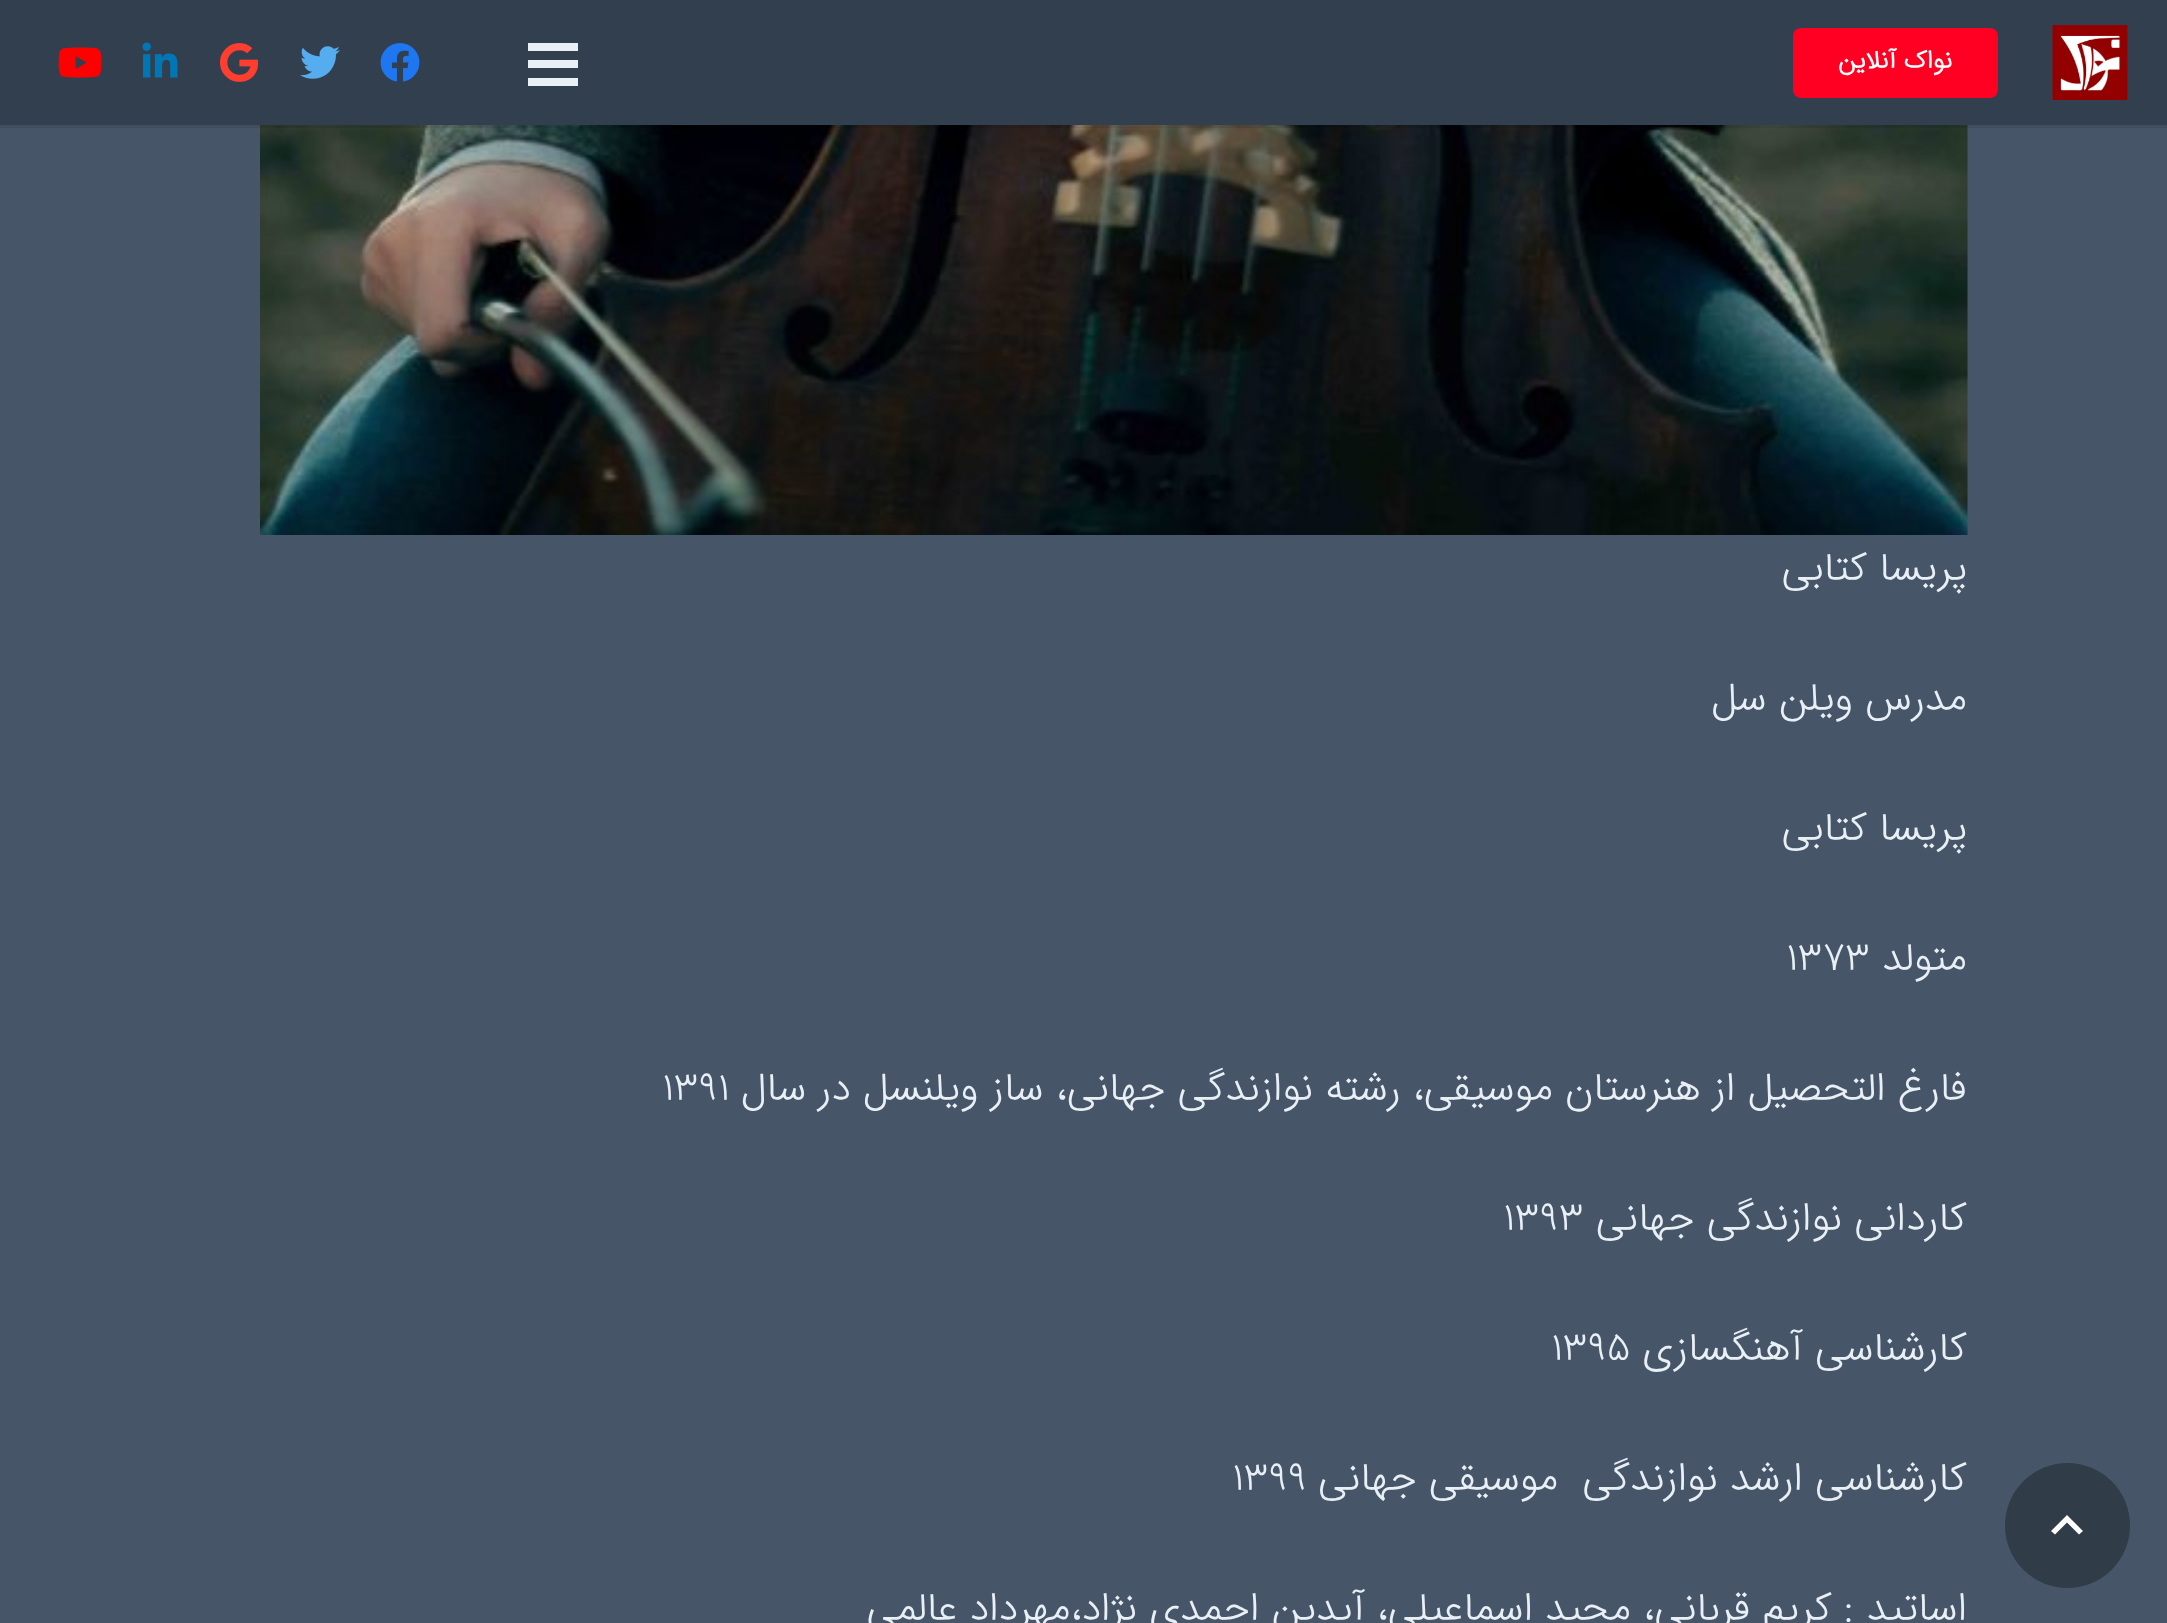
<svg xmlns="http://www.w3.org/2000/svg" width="2167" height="1623">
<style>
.a{font:bold 25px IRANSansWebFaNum;direction:rtl;fill:#fff}
.b{font:300 40px IRANSansWebFaNum;direction:rtl;fill:#e8eff5}
.c{font:300 40px IRANSansWebFaNum;fill:#e8eff5}
</style>
<rect width="100%" height="100%" fill="#465568"/>
<circle fill="#313c49" cx="2067.5" cy="1525.5" r="62.5"/>
<path fill="#fff" d="M2055 1534.5l-4-3.5l16-16l16 16l-4 3.5l-12-12z"/>
<image href="7.png" x="260" y="125" width="1708" height="410"/>
<path fill="#00000014" d="M0 125v3h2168v-125v122z"/>
<path fill="#323f4f" d="M0 0h2167v125H0z"/>
<image href="1.png" x="2052" y="25" width="76" height="75"/>
<rect fill="#f02" x="1793" y="28" width="205" height="70" rx="8"/>
<path fill="#e8eff5" d="M528 60h50v8H528z"/>
<path fill="#e8eff5" d="M528 43h50v8H528z"/>
<path fill="#e8eff5" d="M528 78h50v8H528z"/>
<image href="2.png" x="380" y="43" width="40" height="39"/>
<image href="3.png" x="300" y="46" width="40" height="33"/>
<image href="4.png" x="220" y="43" width="39" height="39"/>
<image href="5.png" x="142" y="42" width="36" height="36"/>
<image href="6.png" x="58" y="47" width="44" height="31"/>
<text class="a" x="1952" y="68">نواک آنلاین</text>
<text class="b" x="1967" y="580">پریسا کتابی</text>
<text class="b" x="1967" y="710">مدرس ویلن سل</text>
<text class="b" x="1967" y="840">پریسا کتابی</text>
<text class="b" x="1967" y="970">متولد</text>
<text class="c" x="1786" y="970">1373</text>
<text class="b" x="1967" y="1100">فارغ التحصیل از هنرستان موسیقی، رشته نوازندگی جهانی، ساز ویلنسل در سال</text>
<text class="c" x="662" y="1100">1391</text>
<text class="b" x="1967" y="1230">کاردانی نوازندگی جهانی</text>
<text class="c" x="1503" y="1230">1393</text>
<text class="b" x="1967" y="1360">کارشناسی آهنگسازی</text>
<text class="c" x="1551" y="1360">1395</text>
<text class="b" xml:space="preserve" x="1967" y="1490">کارشناسی ارشد نوازندگی  موسیقی جهانی</text>
<text class="c" x="1232" y="1490">1399</text>
<text class="b" x="1967" y="1620">اساتید : کریم قربانی، مجید اسماعیلی، آیدین احمدی نژاد،مهرداد عالمی</text>
</svg>
